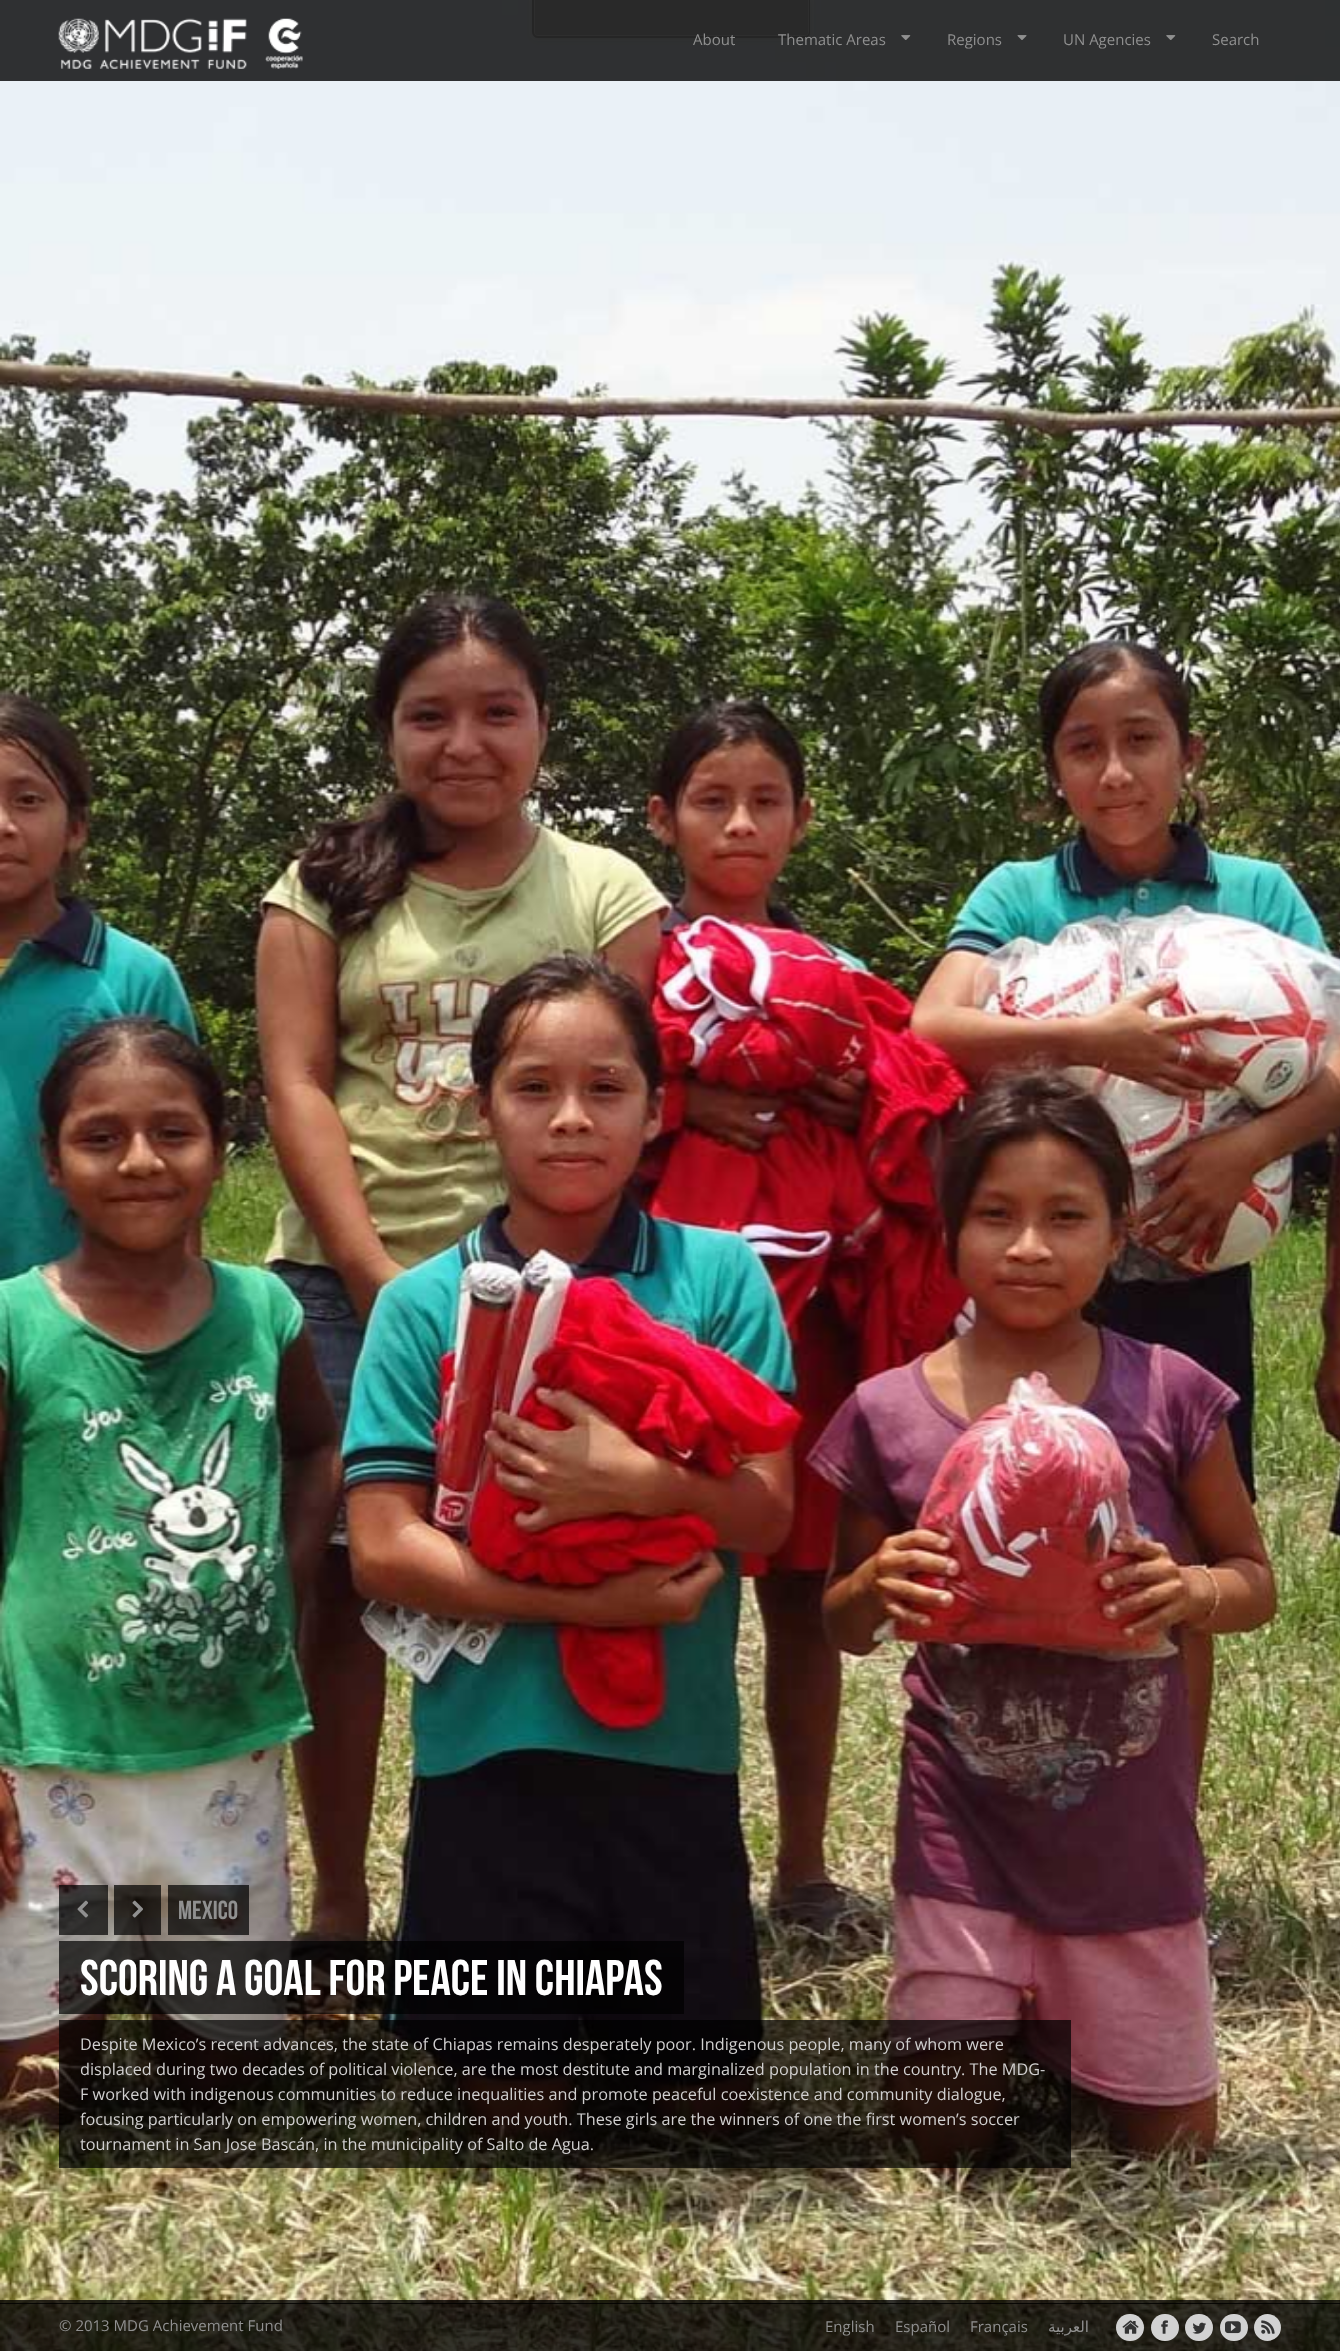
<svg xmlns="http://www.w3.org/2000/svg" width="1340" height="2351">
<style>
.a{font:15px Open Sans;fill:#909090}
.b{font:26px Bebas Neue;fill:#909090}
.c{font:50px Bebas Neue;fill:#fff}
.d{font:16.25px Open Sans;fill:#d0cfcf}
.e{font:15px DejaVu Sans;direction:rtl;fill:#909090}
</style>
<rect width="100%" height="100%" fill="#fff"/>
<image href="1.png" x="0" y="0" width="1340" height="2351"/>
<path fill="none" stroke="#f4f8fb" stroke-width="4" d="M531-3h281v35c0 4-3 7-7 7h-267c-4 0-7-3-7-7z"/>
<rect fill="#0000001a" filter="blur(3px)" x="533" width="277" height="39" rx="5"/>
<path fill="#cbcbcb" d="M533-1h277v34c0 3-2 5-5 5h-267c-3 0-5-2-5-5z"/>
<path fill="none" stroke="#e5e5e5" d="M534.5-.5h274v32.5c0 2-1.5 3.5-3.5 3.5h-267c-2 0-3.5-1.5-3.5-3.5z"/>
<path fill="#bbb" fill-rule="evenodd" d="M532-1h278v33c0 3-2 6-5 6h-267c-3 0-6-3-6-6zm2 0h275v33c0 3-2 4-4 4h-267c-3 0-4-1-4-4z"/>
<path fill="#000000cc" d="M0 0h1340v81H0z"/>
<image href="2.png" x="58" y="18" width="245" height="51"/>
<image href="3.png" x="901" y="35" width="10" height="5"/>
<image href="4.png" x="1017" y="35" width="10" height="5"/>
<image href="3.png" x="1166" y="35" width="10" height="5"/>
<path fill="#000000b3" d="M59 1885h49v50H59z"/>
<image href="5.png" x="77" y="1900" width="12" height="18"/>
<path fill="#000000b3" d="M114 1885h47v50H114z"/>
<image href="6.png" x="132" y="1900" width="11" height="18"/>
<path fill="#000000b3" d="M168 1885h81v50H168z"/>
<path fill="#000000b3" d="M59 1941h625v73H59z"/>
<path fill="#000000b3" d="M59 2020h1012v148H59z"/>
<path fill="#000000cc" d="M0 2300h1340v4H0z"/>
<path fill="#000000cc" d="M0 2303h1340v48H0z"/>
<rect fill="#d2d2d2" x="1116" y="2314" width="28" height="27" rx="13.5"/>
<image href="7.png" x="1122" y="2320" width="17" height="14"/>
<rect fill="#d2d2d2" x="1151" y="2314" width="28" height="27" rx="13.5"/>
<image href="8.png" x="1161" y="2320" width="7" height="14"/>
<rect fill="#d2d2d2" x="1185" y="2314" width="28" height="27" rx="13.5"/>
<image href="9.png" x="1192" y="2322" width="14" height="12"/>
<rect fill="#d2d2d2" x="1220" y="2314" width="28" height="27" rx="13.5"/>
<image href="10.png" x="1225" y="2321" width="16" height="13"/>
<circle fill="#d2d2d2" cx="1267.5" cy="2327.5" r="13.5"/>
<image href="11.png" x="1261" y="2320" width="14" height="14"/>
<text class="a" x="693" y="45">About</text>
<text class="a" x="778" y="45">Thematic Areas</text>
<text class="a" x="947" y="45">Regions</text>
<text class="a" x="1063" y="45">UN Agencies</text>
<text class="a" x="1212" y="45">Search</text>
<text class="b" x="178" y="1919">Mexico</text>
<text class="c" x="80" y="1995">SCORING A GOAL FOR PEACE IN CHIAPAS</text>
<text class="d" x="80" y="2050">Despite Mexico’s recent advances, the state of Chiapas remains desperately poor. Indigenous people, many of whom were</text>
<text class="d" x="80" y="2075">displaced during two decades of political violence, are the most destitute and marginalized population in the country. The MDG-</text>
<text class="d" x="80" y="2100">F worked with indigenous communities to reduce inequalities and promote peaceful coexistence and community dialogue,</text>
<text class="d" x="80" y="2125">focusing particularly on empowering women, children and youth. These girls are the winners of one the first women’s soccer</text>
<text class="d" x="80" y="2150">tournament in San Jose Bascán, in the municipality of Salto de Agua.</text>
<text class="a" x="59" y="2331">© 2013 MDG Achievement Fund</text>
<text class="a" x="825" y="2332">English</text>
<text class="a" x="895" y="2332">Español</text>
<text class="a" x="970" y="2332">Français</text>
<text class="e" x="1089" y="2332">العربية</text>
</svg>
